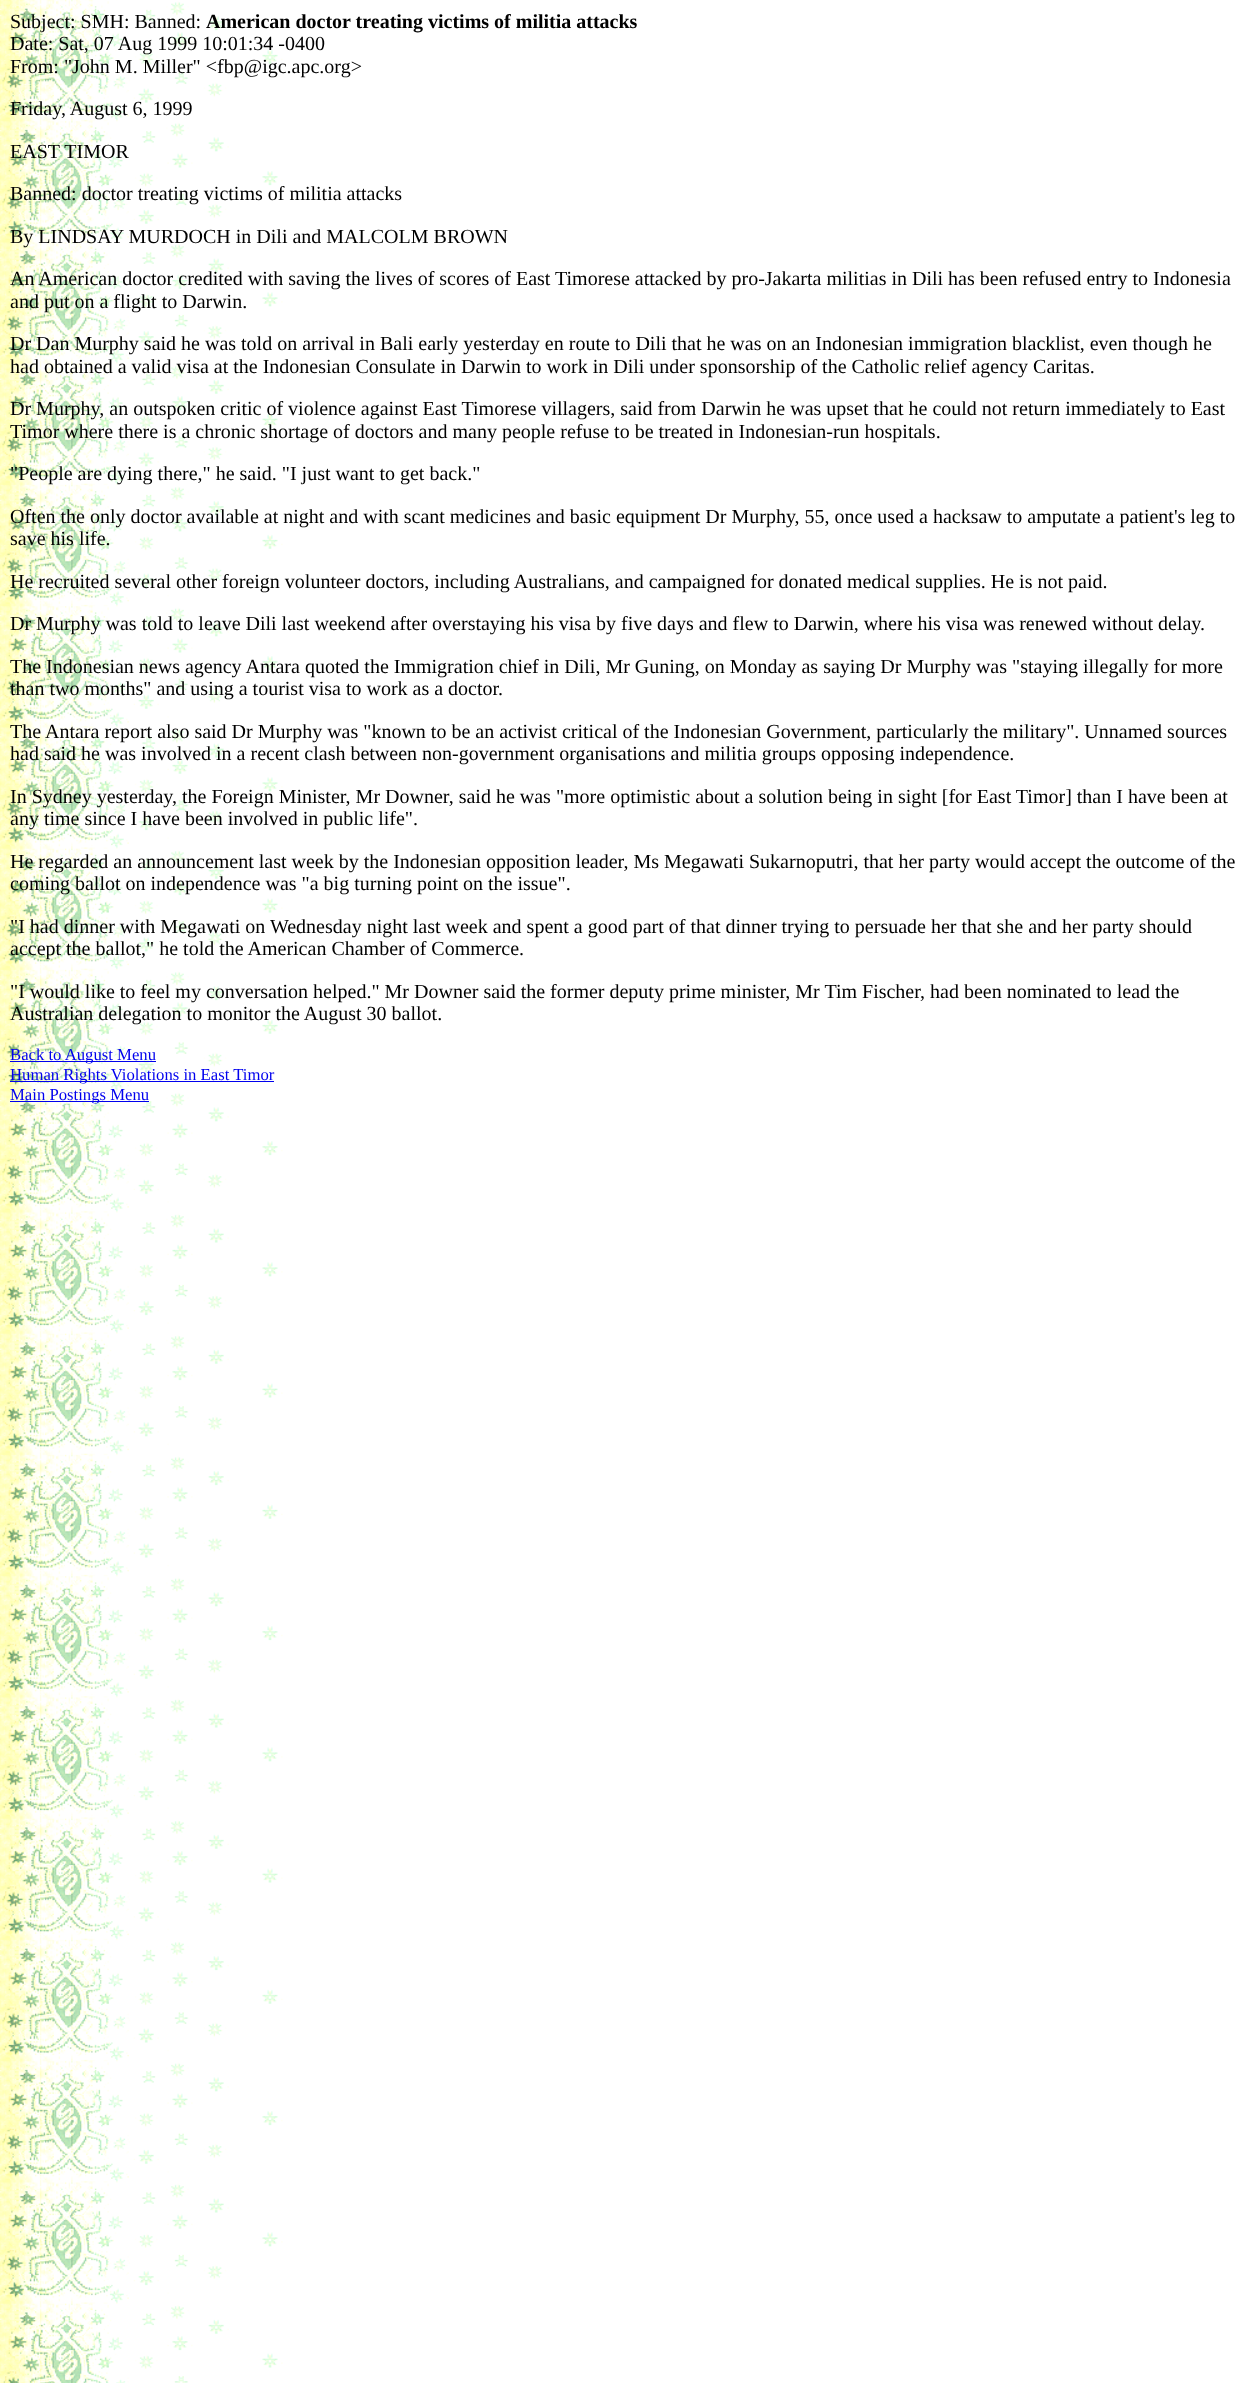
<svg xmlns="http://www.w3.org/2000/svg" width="1255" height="2383">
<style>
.a{font:20px Liberation Serif;fill:#000}
.b{font:bold 20px Liberation Serif;fill:#000}
.c{font:16.7px Liberation Serif;fill:#00e}
</style>
<rect width="100%" height="100%" fill="#fff"/>
<image href="1.png" x="0" y="0" width="283" height="2383"/>
<path fill="#00e" d="M10 1061h146v1H10z"/>
<path fill="#00e" d="M10 1081h264v1H10z"/>
<path fill="#00e" d="M10 1101h139v1H10z"/>
<text class="a" x="10" y="28">Subject: SMH: Banned:</text>
<text class="b" x="206" y="28">American doctor treating victims of militia attacks</text>
<text class="a" x="10" y="50">Date: Sat, 07 Aug 1999 10:01:34 -0400</text>
<text class="a" x="10" y="73">From: "John M. Miller" &lt;fbp@igc.apc.org&gt;</text>
<text class="a" x="10" y="115">Friday, August 6, 1999</text>
<text class="a" x="10" y="158">EAST TIMOR</text>
<text class="a" x="10" y="200">Banned: doctor treating victims of militia attacks</text>
<text class="a" x="10" y="243">By LINDSAY MURDOCH in Dili and MALCOLM BROWN</text>
<text class="a" x="10" y="285">An American doctor credited with saving the lives of scores of East Timorese attacked by pro-Jakarta militias in Dili has been refused entry to Indonesia</text>
<text class="a" x="10" y="308">and put on a flight to Darwin.</text>
<text class="a" x="10" y="350">Dr Dan Murphy said he was told on arrival in Bali early yesterday en route to Dili that he was on an Indonesian immigration blacklist, even though he</text>
<text class="a" x="10" y="373">had obtained a valid visa at the Indonesian Consulate in Darwin to work in Dili under sponsorship of the Catholic relief agency Caritas.</text>
<text class="a" x="10" y="415">Dr Murphy, an outspoken critic of violence against East Timorese villagers, said from Darwin he was upset that he could not return immediately to East</text>
<text class="a" x="10" y="438">Timor where there is a chronic shortage of doctors and many people refuse to be treated in Indonesian-run hospitals.</text>
<text class="a" x="10" y="480">"People are dying there," he said. "I just want to get back."</text>
<text class="a" x="10" y="523">Often the only doctor available at night and with scant medicines and basic equipment Dr Murphy, 55, once used a hacksaw to amputate a patient's leg to</text>
<text class="a" x="10" y="545">save his life.</text>
<text class="a" x="10" y="588">He recruited several other foreign volunteer doctors, including Australians, and campaigned for donated medical supplies. He is not paid.</text>
<text class="a" x="10" y="630">Dr Murphy was told to leave Dili last weekend after overstaying his visa by five days and flew to Darwin, where his visa was renewed without delay.</text>
<text class="a" x="10" y="673">The Indonesian news agency Antara quoted the Immigration chief in Dili, Mr Guning, on Monday as saying Dr Murphy was "staying illegally for more</text>
<text class="a" x="10" y="695">than two months" and using a tourist visa to work as a doctor.</text>
<text class="a" x="10" y="738">The Antara report also said Dr Murphy was "known to be an activist critical of the Indonesian Government, particularly the military". Unnamed sources</text>
<text class="a" x="10" y="760">had said he was involved in a recent clash between non-government organisations and militia groups opposing independence.</text>
<text class="a" x="10" y="803">In Sydney yesterday, the Foreign Minister, Mr Downer, said he was "more optimistic about a solution being in sight [for East Timor] than I have been at</text>
<text class="a" x="10" y="825">any time since I have been involved in public life".</text>
<text class="a" x="10" y="868">He regarded an announcement last week by the Indonesian opposition leader, Ms Megawati Sukarnoputri, that her party would accept the outcome of the</text>
<text class="a" x="10" y="890">coming ballot on independence was "a big turning point on the issue".</text>
<text class="a" x="10" y="933">"I had dinner with Megawati on Wednesday night last week and spent a good part of that dinner trying to persuade her that she and her party should</text>
<text class="a" x="10" y="955">accept the ballot," he told the American Chamber of Commerce.</text>
<text class="a" x="10" y="998">"I would like to feel my conversation helped." Mr Downer said the former deputy prime minister, Mr Tim Fischer, had been nominated to lead the</text>
<text class="a" x="10" y="1020">Australian delegation to monitor the August 30 ballot.</text>
<text class="c" x="10" y="1060">Back to August Menu</text>
<text class="c" x="10" y="1080">Human Rights Violations in East Timor</text>
<text class="c" x="10" y="1100">Main Postings Menu</text>
</svg>
